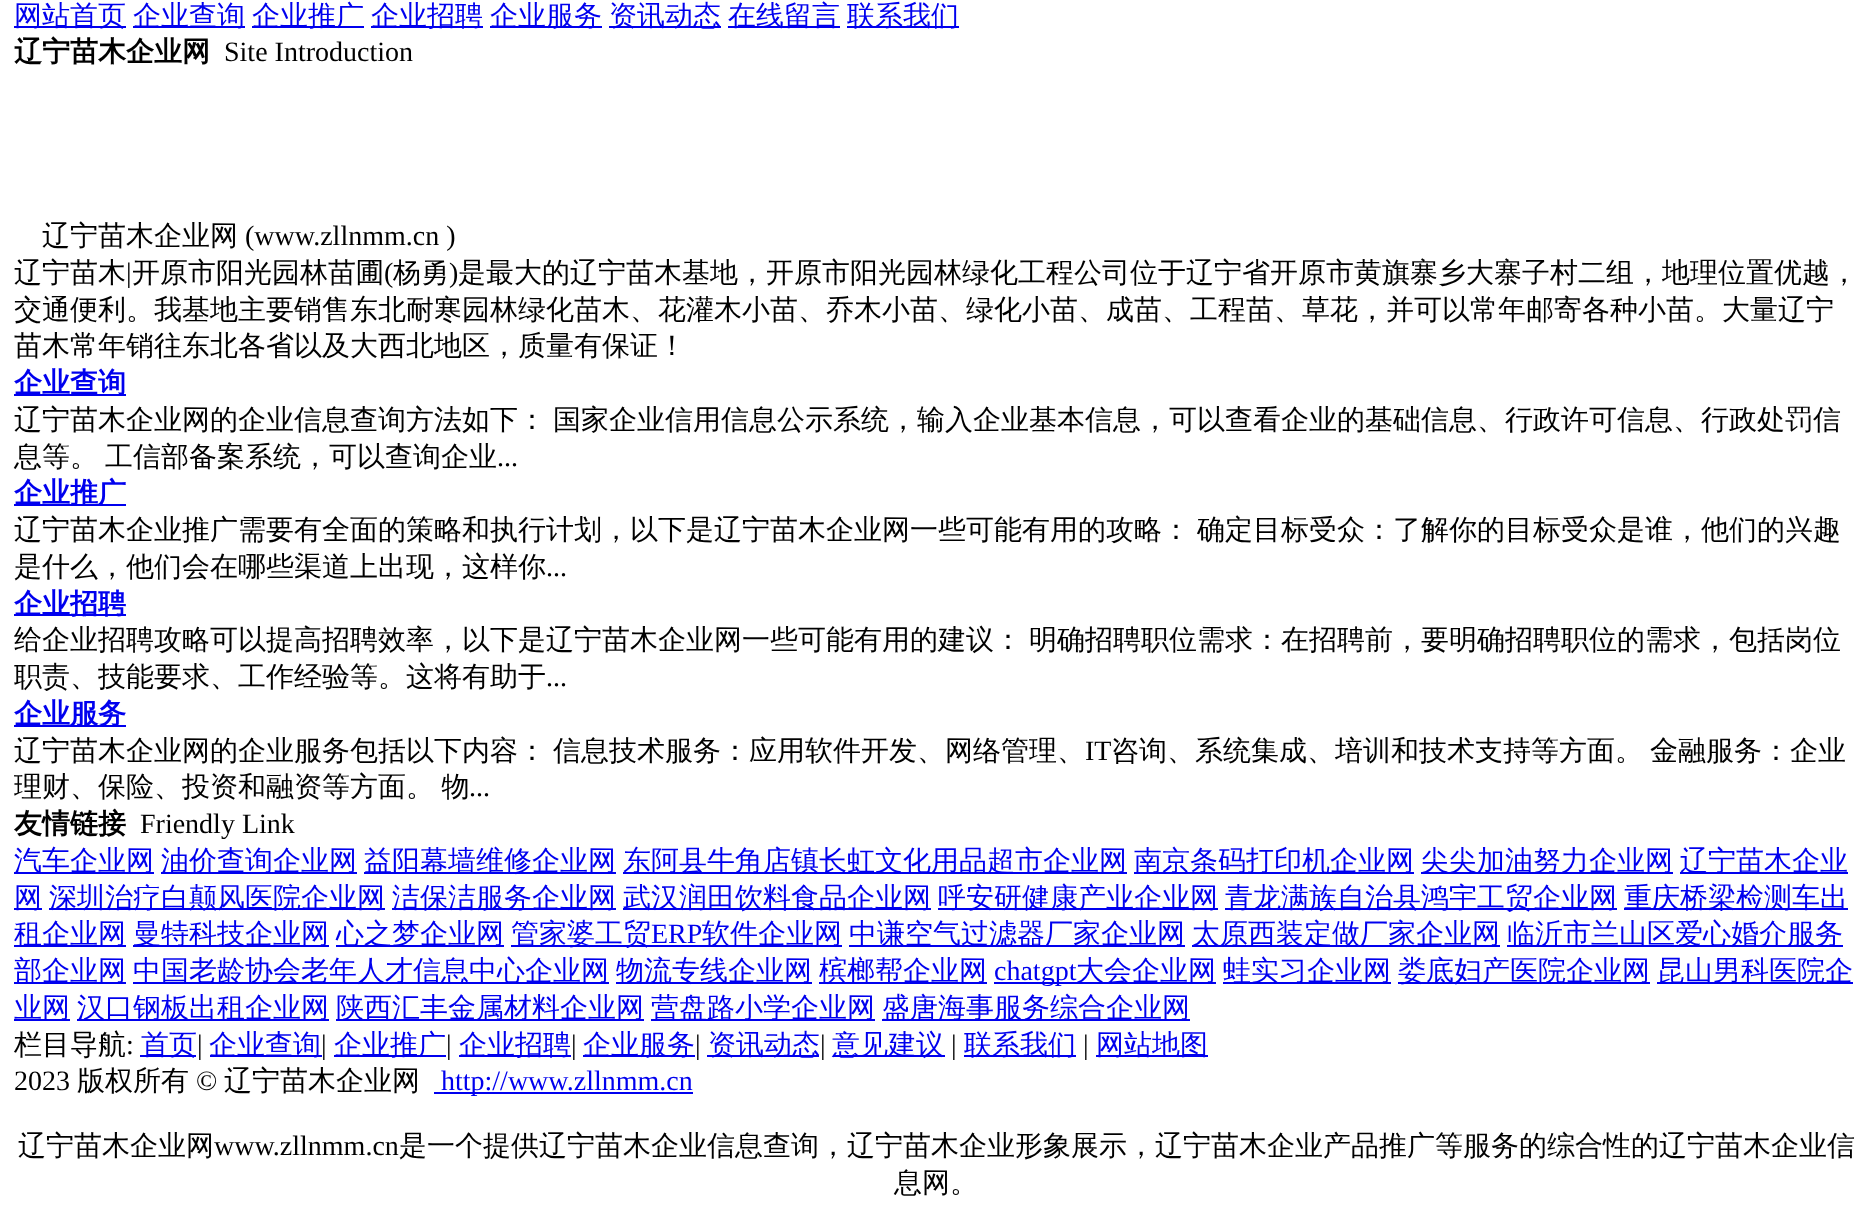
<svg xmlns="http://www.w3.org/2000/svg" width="1871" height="1223">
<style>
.a{font:500 28px WenQuanYi Zen Hei;fill:#00e}
.b{font:bold 28px WenQuanYi Zen Hei;fill:#000}
.c{font:28px Liberation Serif;fill:#000}
.d{font:500 28px WenQuanYi Zen Hei;fill:#000}
.e{font:bold 28px WenQuanYi Zen Hei;fill:#00e}
.f{font:28px Liberation Serif;fill:#00e}
</style>
<rect width="100%" height="100%" fill="#fff"/>
<path fill="#00e" d="M14 26h112v2H14z"/>
<path fill="#00e" d="M133 26h112v2H133z"/>
<path fill="#00e" d="M252 26h112v2H252z"/>
<path fill="#00e" d="M371 26h112v2H371z"/>
<path fill="#00e" d="M490 26h112v2H490z"/>
<path fill="#00e" d="M609 26h112v2H609z"/>
<path fill="#00e" d="M728 26h112v2H728z"/>
<path fill="#00e" d="M847 26h112v2H847z"/>
<path fill="#00e" d="M14 394h112v2H14z"/>
<path fill="#00e" d="M14 504h112v2H14z"/>
<path fill="#00e" d="M14 614h112v2H14z"/>
<path fill="#00e" d="M14 725h112v2H14z"/>
<path fill="#00e" d="M14 872h140v2H14z"/>
<path fill="#00e" d="M161 872h196v2H161z"/>
<path fill="#00e" d="M364 872h252v2H364z"/>
<path fill="#00e" d="M623 872h504v2H623z"/>
<path fill="#00e" d="M1134 872h280v2H1134z"/>
<path fill="#00e" d="M1421 872h252v2H1421z"/>
<path fill="#00e" d="M1680 872h168v2H1680z"/>
<path fill="#00e" d="M14 908h28v2H14z"/>
<path fill="#00e" d="M49 908h336v2H49z"/>
<path fill="#00e" d="M392 908h224v2H392z"/>
<path fill="#00e" d="M623 908h308v2H623z"/>
<path fill="#00e" d="M938 908h280v2H938z"/>
<path fill="#00e" d="M1225 908h392v2H1225z"/>
<path fill="#00e" d="M1624 908h224v2H1624z"/>
<path fill="#00e" d="M14 945h112v2H14z"/>
<path fill="#00e" d="M133 945h196v2H133z"/>
<path fill="#00e" d="M336 945h168v2H336z"/>
<path fill="#00e" d="M511 945h331v2H511z"/>
<path fill="#00e" d="M849 945h336v2H849z"/>
<path fill="#00e" d="M1192 945h308v2H1192z"/>
<path fill="#00e" d="M1507 945h336v2H1507z"/>
<path fill="#00e" d="M14 982h112v2H14z"/>
<path fill="#00e" d="M133 982h476v2H133z"/>
<path fill="#00e" d="M616 982h196v2H616z"/>
<path fill="#00e" d="M819 982h168v2H819z"/>
<path fill="#00e" d="M994 982h222v2H994z"/>
<path fill="#00e" d="M1223 982h168v2H1223z"/>
<path fill="#00e" d="M1398 982h252v2H1398z"/>
<path fill="#00e" d="M1657 982h196v2H1657z"/>
<path fill="#00e" d="M14 1019h56v2H14z"/>
<path fill="#00e" d="M77 1019h252v2H77z"/>
<path fill="#00e" d="M336 1019h308v2H336z"/>
<path fill="#00e" d="M651 1019h224v2H651z"/>
<path fill="#00e" d="M882 1019h308v2H882z"/>
<path fill="#00e" d="M140 1055h56v2H140z"/>
<path fill="#00e" d="M210 1055h112v2H210z"/>
<path fill="#00e" d="M334 1055h112v2H334z"/>
<path fill="#00e" d="M459 1055h112v2H459z"/>
<path fill="#00e" d="M583 1055h112v2H583z"/>
<path fill="#00e" d="M707 1055h112v2H707z"/>
<path fill="#00e" d="M833 1055h112v2H833z"/>
<path fill="#00e" d="M964 1055h112v2H964z"/>
<path fill="#00e" d="M1096 1055h112v2H1096z"/>
<path fill="#00e" d="M434 1092h259v2H434z"/>
<text class="a" x="14" y="25">网站首页</text>
<text class="a" x="133" y="25">企业查询</text>
<text class="a" x="252" y="25">企业推广</text>
<text class="a" x="371" y="25">企业招聘</text>
<text class="a" x="490" y="25">企业服务</text>
<text class="a" x="609" y="25">资讯动态</text>
<text class="a" x="728" y="25">在线留言</text>
<text class="a" x="847" y="25">联系我们</text>
<text class="b" x="14" y="61">辽宁苗木企业网</text>
<text class="c" x="224" y="61">Site Introduction</text>
<text class="d" x="42" y="245">辽宁苗木企业网</text>
<text class="c" x="245" y="245">(www.zllnmm.cn )</text>
<text class="d" x="14" y="282">辽宁苗木</text>
<text class="c" x="126" y="282">|</text>
<text class="d" x="132" y="282">开原市阳光园林苗圃</text>
<text class="c" x="384" y="282">(</text>
<text class="d" x="393" y="282">杨勇</text>
<text class="c" x="449" y="282">)</text>
<text class="d" x="458" y="282">是最大的辽宁苗木基地，开原市阳光园林绿化工程公司位于辽宁省开原市黄旗寨乡大寨子村二组，地理位置优越，</text>
<text class="d" x="14" y="319">交通便利。我基地主要销售东北耐寒园林绿化苗木、花灌木小苗、乔木小苗、绿化小苗、成苗、工程苗、草花，并可以常年邮寄各种小苗。大量辽宁</text>
<text class="d" x="14" y="355">苗木常年销往东北各省以及大西北地区，质量有保证！</text>
<text class="e" x="14" y="392">企业查询</text>
<text class="d" x="14" y="429">辽宁苗木企业网的企业信息查询方法如下：</text>
<text class="d" x="553" y="429">国家企业信用信息公示系统，输入企业基本信息，可以查看企业的基础信息、行政许可信息、行政处罚信</text>
<text class="d" x="14" y="466">息等。</text>
<text class="d" x="105" y="466">工信部备案系统，可以查询企业</text>
<text class="c" x="497" y="466">...</text>
<text class="e" x="14" y="502">企业推广</text>
<text class="d" x="14" y="539">辽宁苗木企业推广需要有全面的策略和执行计划，以下是辽宁苗木企业网一些可能有用的攻略：</text>
<text class="d" x="1197" y="539">确定目标受众：了解你的目标受众是谁，他们的兴趣</text>
<text class="d" x="14" y="576">是什么，他们会在哪些渠道上出现，这样你</text>
<text class="c" x="546" y="576">...</text>
<text class="e" x="14" y="613">企业招聘</text>
<text class="d" x="14" y="649">给企业招聘攻略可以提高招聘效率，以下是辽宁苗木企业网一些可能有用的建议：</text>
<text class="d" x="1029" y="649">明确招聘职位需求：在招聘前，要明确招聘职位的需求，包括岗位</text>
<text class="d" x="14" y="686">职责、技能要求、工作经验等。这将有助于</text>
<text class="c" x="546" y="686">...</text>
<text class="e" x="14" y="723">企业服务</text>
<text class="d" x="14" y="760">辽宁苗木企业网的企业服务包括以下内容：</text>
<text class="d" x="553" y="760">信息技术服务：应用软件开发、网络管理、</text>
<text class="c" x="1085" y="760">IT</text>
<text class="d" x="1111" y="760">咨询、系统集成、培训和技术支持等方面。</text>
<text class="d" x="1650" y="760">金融服务：企业</text>
<text class="d" x="14" y="796" word-spacing="-1">理财、保险、投资和融资等方面。 物</text>
<text class="c" x="469" y="796">...</text>
<text class="b" x="14" y="833">友情链接</text>
<text class="c" x="140" y="833">Friendly Link</text>
<text class="a" x="14" y="870">汽车企业网</text>
<text class="a" x="161" y="870">油价查询企业网</text>
<text class="a" x="364" y="870">益阳幕墙维修企业网</text>
<text class="a" x="623" y="870">东阿县牛角店镇长虹文化用品超市企业网</text>
<text class="a" x="1134" y="870">南京条码打印机企业网</text>
<text class="a" x="1421" y="870">尖尖加油努力企业网</text>
<text class="a" x="1680" y="870">辽宁苗木企业</text>
<text class="a" x="14" y="907">网</text>
<text class="a" x="49" y="907">深圳治疗白颠风医院企业网</text>
<text class="a" x="392" y="907">洁保洁服务企业网</text>
<text class="a" x="623" y="907">武汉润田饮料食品企业网</text>
<text class="a" x="938" y="907">呼安研健康产业企业网</text>
<text class="a" x="1225" y="907">青龙满族自治县鸿宇工贸企业网</text>
<text class="a" x="1624" y="907">重庆桥梁检测车出</text>
<text class="a" x="14" y="943">租企业网</text>
<text class="a" x="133" y="943">曼特科技企业网</text>
<text class="a" x="336" y="943">心之梦企业网</text>
<text class="a" x="511" y="943">管家婆工贸</text>
<text class="f" x="651" y="943">ERP</text>
<text class="a" x="702" y="943">软件企业网</text>
<text class="a" x="849" y="943">中谦空气过滤器厂家企业网</text>
<text class="a" x="1192" y="943">太原西装定做厂家企业网</text>
<text class="a" x="1507" y="943">临沂市兰山区爱心婚介服务</text>
<text class="a" x="14" y="980">部企业网</text>
<text class="a" x="133" y="980">中国老龄协会老年人才信息中心企业网</text>
<text class="a" x="616" y="980">物流专线企业网</text>
<text class="a" x="819" y="980">槟榔帮企业网</text>
<text class="f" x="994" y="980">chatgpt</text>
<text class="a" x="1076" y="980">大会企业网</text>
<text class="a" x="1223" y="980">蛙实习企业网</text>
<text class="a" x="1398" y="980">娄底妇产医院企业网</text>
<text class="a" x="1657" y="980">昆山男科医院企</text>
<text class="a" x="14" y="1017">业网</text>
<text class="a" x="77" y="1017">汉口钢板出租企业网</text>
<text class="a" x="336" y="1017">陕西汇丰金属材料企业网</text>
<text class="a" x="651" y="1017">营盘路小学企业网</text>
<text class="a" x="882" y="1017">盛唐海事服务综合企业网</text>
<text class="d" x="14" y="1054">栏目导航</text>
<text class="c" x="126" y="1054">:</text>
<text class="a" x="141" y="1054">首页</text>
<text class="c" x="197" y="1054">|</text>
<text class="a" x="209" y="1054">企业查询</text>
<text class="c" x="321" y="1054">|</text>
<text class="a" x="334" y="1054">企业推广</text>
<text class="c" x="446" y="1054">|</text>
<text class="a" x="459" y="1054">企业招聘</text>
<text class="c" x="571" y="1054">|</text>
<text class="a" x="583" y="1054">企业服务</text>
<text class="c" x="695" y="1054">|</text>
<text class="a" x="708" y="1054">资讯动态</text>
<text class="c" x="820" y="1054">|</text>
<text class="a" x="832" y="1054">意见建议</text>
<text class="c" x="951" y="1054">|</text>
<text class="a" x="964" y="1054">联系我们</text>
<text class="c" x="1083" y="1054">|</text>
<text class="a" x="1096" y="1054">网站地图</text>
<text class="c" x="14" y="1090">2023</text>
<text class="d" x="77" y="1090">版权所有</text>
<text class="c" x="196" y="1090">©</text>
<text class="d" x="224" y="1090">辽宁苗木企业网</text>
<text class="f" x="441" y="1090">http://www.zllnmm.cn</text>
<text class="d" x="18" y="1155">辽宁苗木企业网</text>
<text class="c" x="214" y="1155">www.zllnmm.cn</text>
<text class="d" x="399" y="1155">是一个提供辽宁苗木企业信息查询，辽宁苗木企业形象展示，辽宁苗木企业产品推广等服务的综合性的辽宁苗木企业信</text>
<text class="d" x="894" y="1192">息网。</text>
</svg>
